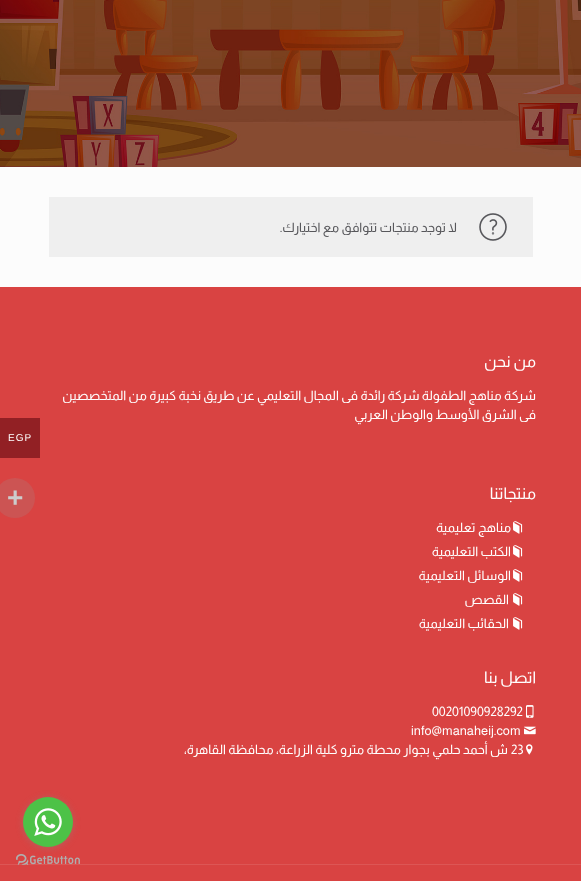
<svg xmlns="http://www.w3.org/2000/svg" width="581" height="881">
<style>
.a{font:13px Almarai;direction:rtl;fill:#57575b}
.b{font:16px Almarai;direction:rtl;fill:#fff}
.c{font:13px Almarai;direction:rtl;fill:#fff}
.d{font:13px Almarai;fill:#fff}
.e{font:10px Liberation Sans;letter-spacing:1px;fill:#fff}
.f{font:bold 28px Liberation Sans;fill:#ccc}
</style>
<rect width="100%" height="100%" fill="#fcfcfc"/>
<image href="1.png" x="0" y="0" width="581" height="167"/>
<path fill="#efefef" d="M49 197h484v60H49z"/>
<image href="2.png" x="479" y="213" width="28" height="28"/>
<path fill="#d94342" d="M0 287h581v594H0z"/>
<image href="3.png" x="513" y="521" width="10" height="13"/>
<image href="3.png" x="513" y="545" width="10" height="13"/>
<image href="3.png" x="513" y="569" width="10" height="13"/>
<image href="3.png" x="513" y="593" width="10" height="13"/>
<image href="3.png" x="513" y="617" width="10" height="13"/>
<image href="4.png" x="526" y="705" width="8" height="13"/>
<image href="5.png" x="524" y="726" width="12" height="9"/>
<image href="6.png" x="526" y="744" width="7" height="11"/>
<path fill="#dd5655" d="M0 864h581v1H0z"/>
<path fill="#922024" d="M0 418h40v40H0z"/>
<circle fill="#cc5453" cx="15" cy="498" r="20"/>
<image href="8.png" x="16" y="854" width="64" height="11"/>
<rect fill="#88888866" filter="blur(3.5px)" x="23" y="798" width="50" height="50" rx="25"/>
<circle fill="#4dc247" cx="48" cy="822" r="25"/>
<image href="7.png" x="34" y="808" width="28" height="28"/>
<text class="a" x="457" y="232">لا توجد منتجات تتوافق مع اختيارك.</text>
<text class="b" x="536" y="367">من نحن</text>
<text class="c" x="536" y="400">شركة مناهج الطفولة شركة رائدة فى المجال التعليمي عن طريق نخبة كبيرة من المتخصصين</text>
<text class="c" x="536" y="419">فى الشرق الأوسط والوطن العربي</text>
<text class="b" x="536" y="499">منتجاتنا</text>
<text class="c" x="511" y="532">مناهج تعليمية</text>
<text class="c" x="511" y="556">الكتب التعليمية</text>
<text class="c" x="511" y="580">الوسائل التعليمية</text>
<text class="c" x="509" y="604">القصص</text>
<text class="c" x="509" y="628">الحقائب التعليمية</text>
<text class="b" x="536" y="683">اتصل بنا</text>
<text class="d" x="432" y="716">00201090928292</text>
<text class="d" x="411" y="735">info@manaheij.com</text>
<text class="d" x="511" y="754">23</text>
<text class="c" x="508" y="754">ش أحمد حلمي بجوار محطة مترو كلية الزراعة، محافظة القاهرة،</text>
<text class="e" x="8" y="441">EGP</text>
<text class="f" x="7" y="507">+</text>
</svg>
